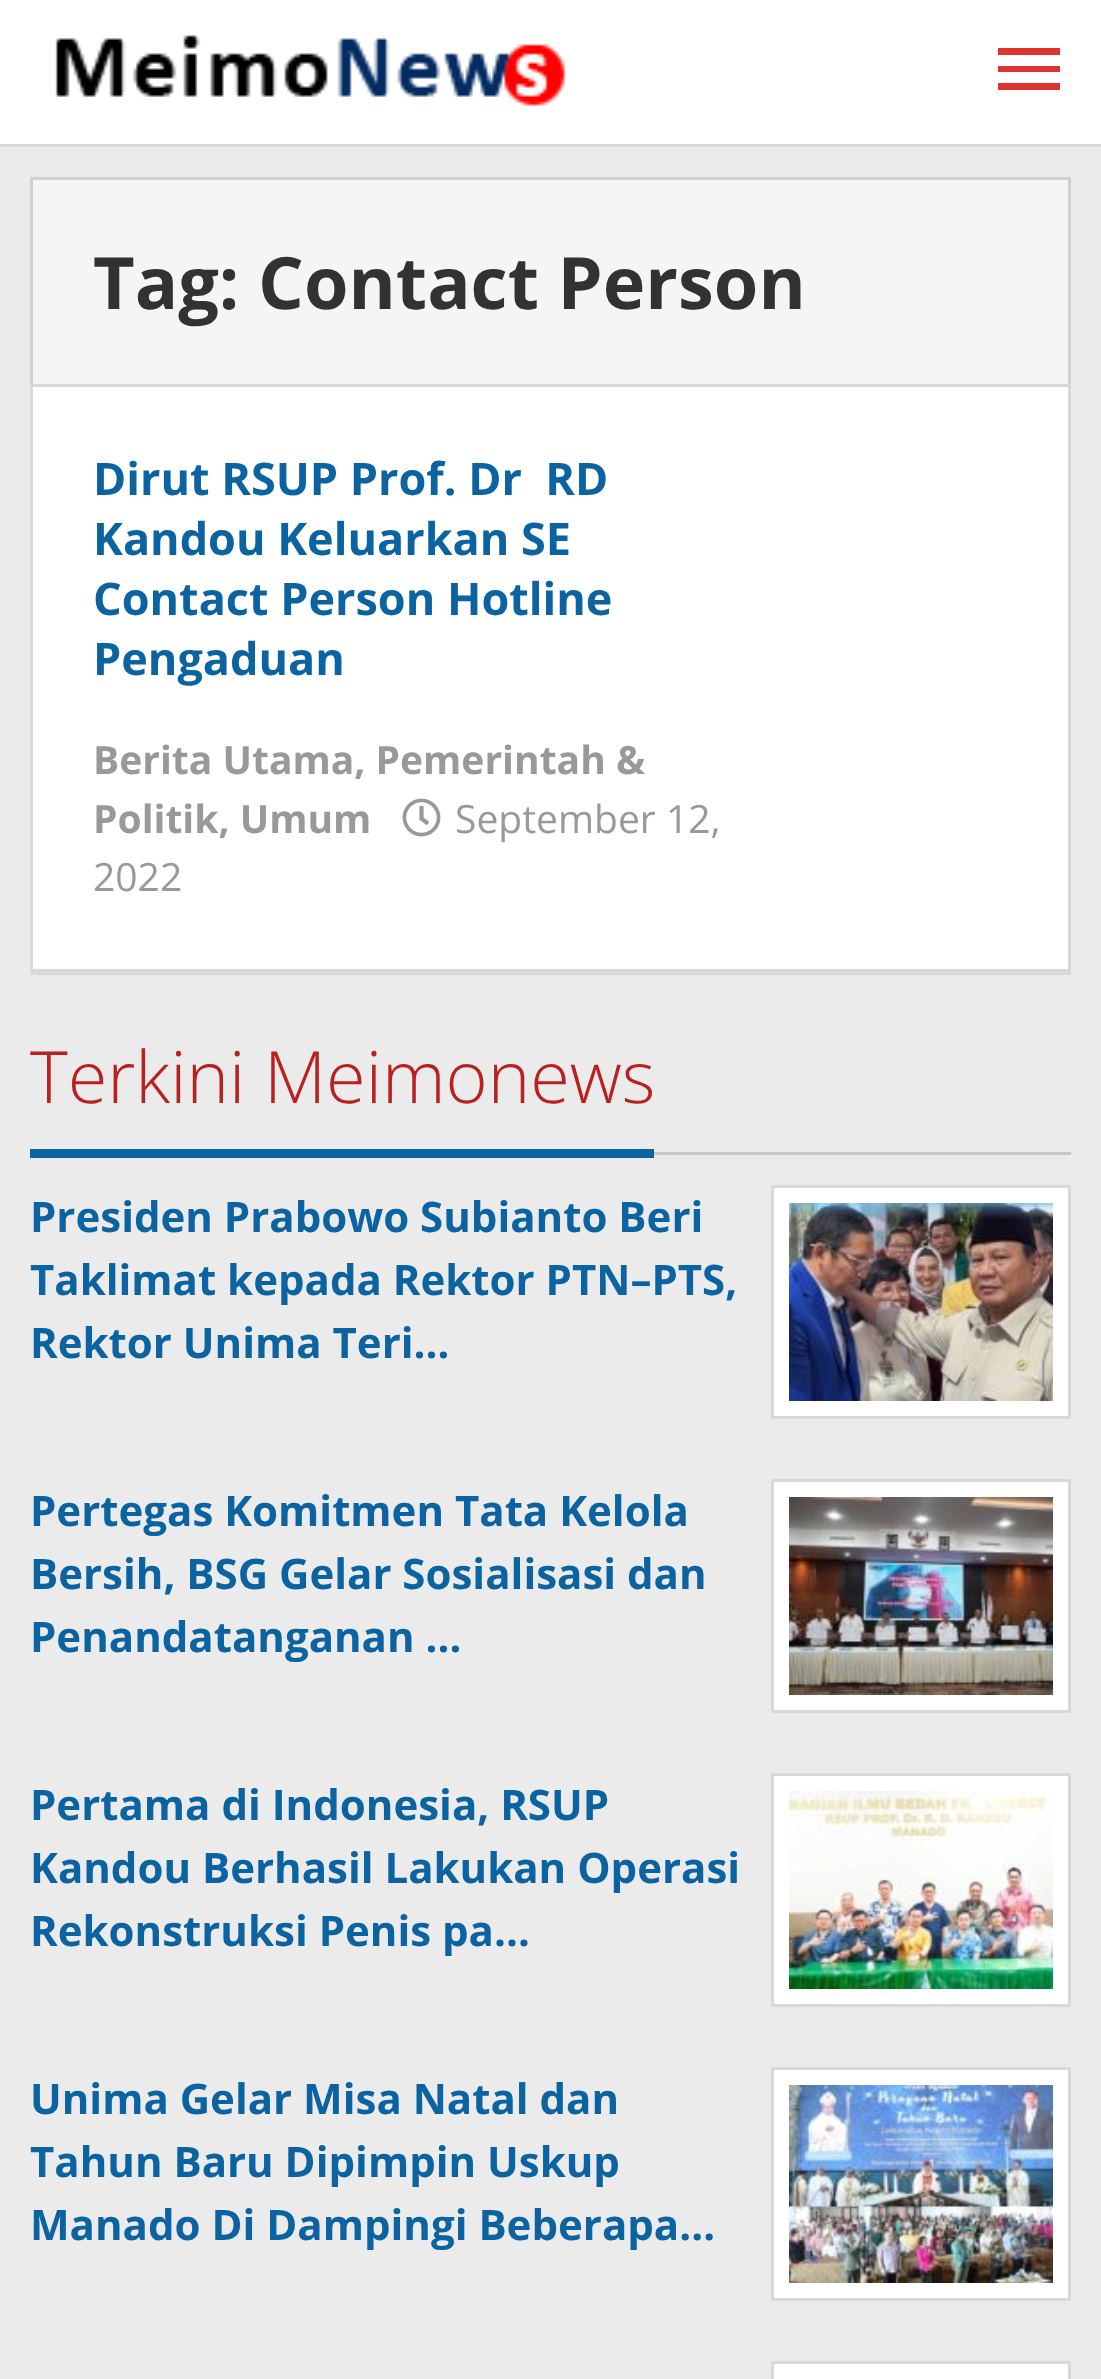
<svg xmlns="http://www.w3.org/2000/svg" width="1101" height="2379">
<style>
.a{font:bold 72px Open Sans;fill:#323233}
.b{font:bold 45px Open Sans;fill:#0b63a1}
.c{font:bold 39px Open Sans;fill:#999}
.d{font:39px Open Sans;fill:#999}
.e{font:300 72px Open Sans;fill:#b9201f}
.f{font:bold 42px Open Sans;fill:#0b63a1}
</style>
<rect width="100%" height="100%" fill="#ebebeb"/>
<path fill="#fff" d="M0 0h1101v144H0z"/>
<path fill="#d9d9d9" d="M0 144h1101v3H0z"/>
<image href="1.png" x="55" y="35" width="511" height="71"/>
<path fill="#d33" d="M998 90h62v-7h-62zm0-18h62v-6h-62zm0-24v7h62v-7z"/>
<path fill="#f5f5f5" stroke="#d0d0d0" stroke-width="3" d="M31.5 178.5h1038v207H31.5z"/>
<path fill="#fff" d="M33 387h1035v582H33z"/>
<path fill="none" stroke="#d9d9d9" stroke-width="3" d="M31.5 385.5h1038v588H31.5z"/>
<path fill="#d9d9d9" d="M33 969h1035v3H33z"/>
<image href="2.png" x="402" y="798" width="39" height="39"/>
<path fill="#c8c8c8" d="M654 1152h417v3H654z"/>
<path fill="#0b63a1" d="M30 1149h624v9H30z"/>
<path fill="#fff" stroke="#d9d9d9" stroke-width="3" d="M772.5 1186.5h297v231H772.5z"/>
<image href="3.png" x="789" y="1203" width="264" height="198"/>
<path fill="#fff" stroke="#d9d9d9" stroke-width="3" d="M772.5 1480.5h297v231H772.5z"/>
<image href="4.png" x="789" y="1497" width="264" height="198"/>
<path fill="#fff" stroke="#d9d9d9" stroke-width="3" d="M772.5 1774.5h297v231H772.5z"/>
<image href="5.png" x="789" y="1791" width="264" height="198"/>
<path fill="#fff" stroke="#d9d9d9" stroke-width="3" d="M772.5 2068.5h297v231H772.5z"/>
<image href="6.png" x="789" y="2085" width="264" height="198"/>
<path fill="#fff" stroke="#d9d9d9" stroke-width="3" d="M772.5 2362.5h297v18H772.5z"/>
<text class="a" x="93" y="309">Tag: Contact Person</text>
<text class="b" xml:space="preserve" x="93" y="495">Dirut RSUP Prof. Dr  RD</text>
<text class="b" x="93" y="555">Kandou Keluarkan SE</text>
<text class="b" x="93" y="615">Contact Person Hotline</text>
<text class="b" x="93" y="675">Pengaduan</text>
<text class="c" x="93" y="774">Berita Utama, Pemerintah &amp;</text>
<text class="c" x="93" y="833">Politik, Umum</text>
<text class="d" x="455" y="833">September 12,</text>
<text class="d" x="93" y="891">2022</text>
<text class="e" x="30" y="1103">Terkini Meimonews</text>
<text class="f" x="30" y="1232">Presiden Prabowo Subianto Beri</text>
<text class="f" x="30" y="1295">Taklimat kepada Rektor PTN–PTS,</text>
<text class="f" x="30" y="1358">Rektor Unima Teri…</text>
<text class="f" x="30" y="1526">Pertegas Komitmen Tata Kelola</text>
<text class="f" x="30" y="1589">Bersih, BSG Gelar Sosialisasi dan</text>
<text class="f" x="30" y="1652">Penandatanganan …</text>
<text class="f" x="30" y="1820">Pertama di Indonesia, RSUP</text>
<text class="f" x="30" y="1883">Kandou Berhasil Lakukan Operasi</text>
<text class="f" x="30" y="1946">Rekonstruksi Penis pa…</text>
<text class="f" x="30" y="2114">Unima Gelar Misa Natal dan</text>
<text class="f" x="30" y="2177">Tahun Baru Dipimpin Uskup</text>
<text class="f" x="30" y="2240">Manado Di Dampingi Beberapa…</text>
</svg>
